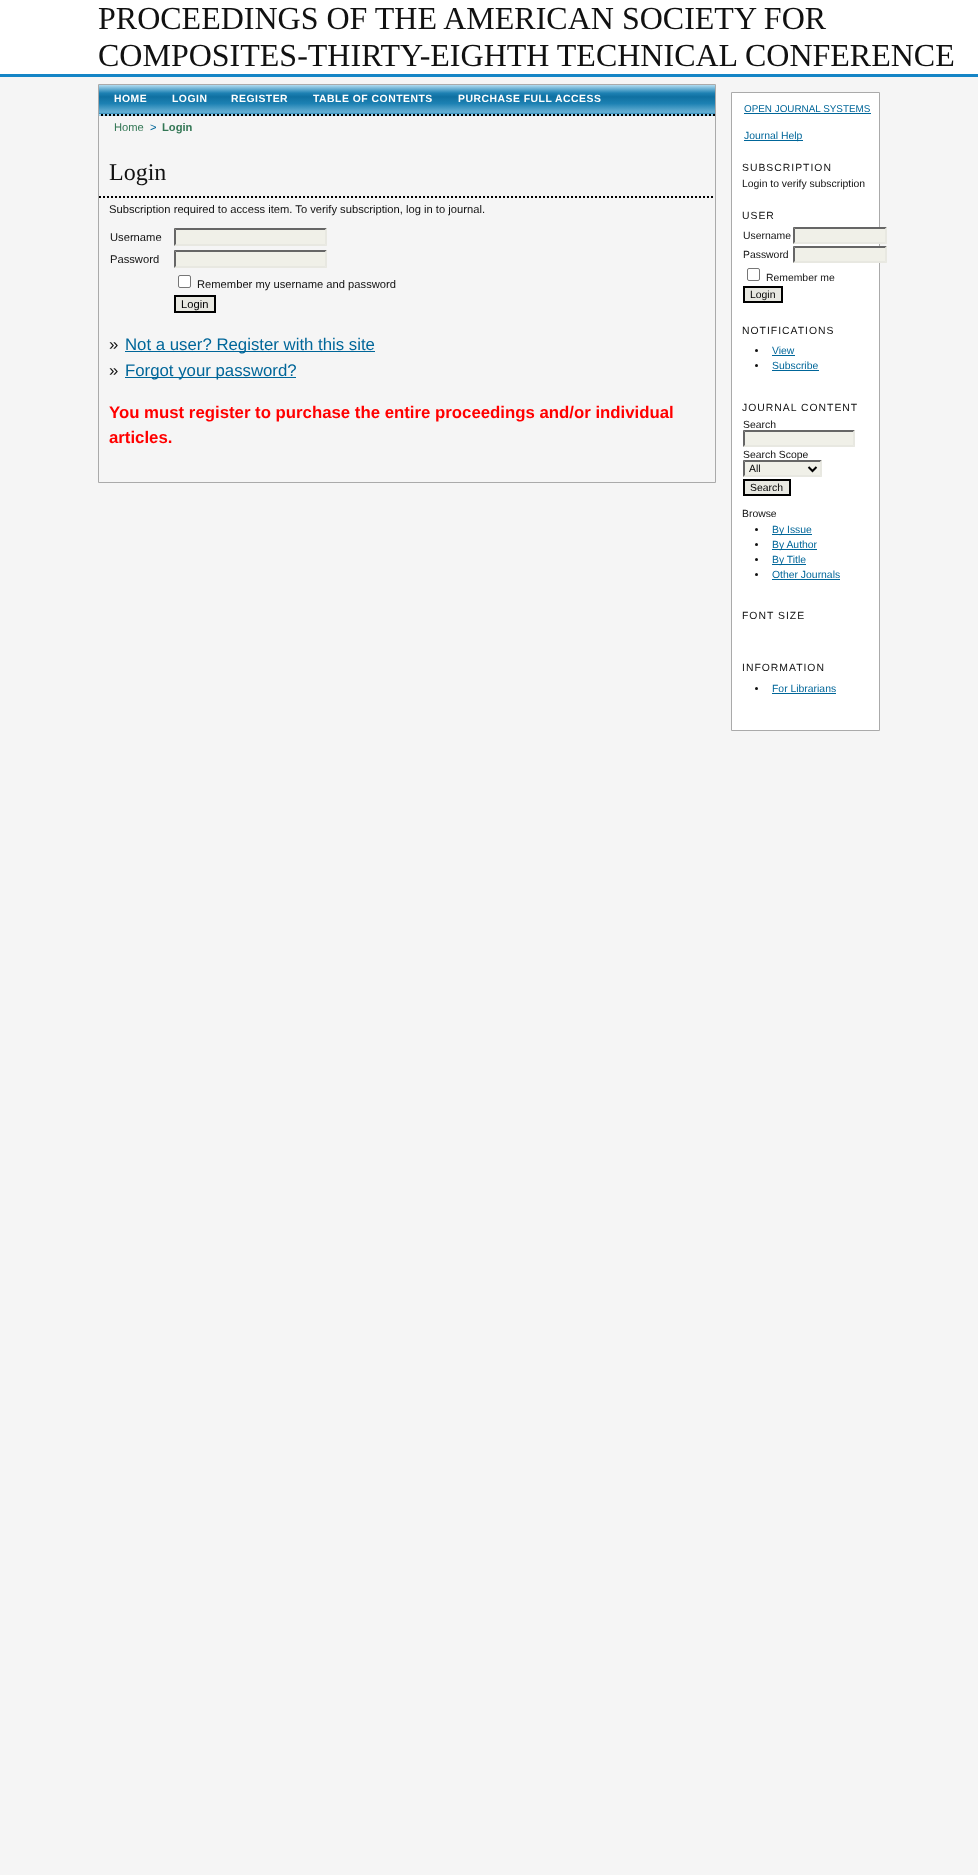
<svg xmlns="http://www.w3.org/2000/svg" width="978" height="1875">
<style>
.a{font:32px Liberation Serif;fill:#111}
.b{font:bold 10.4px Liberation Sans;letter-spacing:0.5px;fill:#fff}
.c{font:11.2px Liberation Sans;fill:#375}
.d{font:11.2px Liberation Sans;fill:#069}
.e{font:bold 11.2px Liberation Sans;fill:#375}
.f{font:24px Liberation Serif;fill:#111}
.g{font:11.2px Liberation Sans;fill:#111}
.h{font:11.2px Liberation Sans;fill:#000}
.i{font:16.8px Liberation Sans;fill:#111}
.j{font:16.8px Liberation Sans;fill:#069}
.k{font:bold 16.8px Liberation Sans;fill:#f00}
.l{font:9.9px Liberation Sans;fill:#069}
.m{font:10.4px Liberation Sans;fill:#069}
.n{font:10.4px Liberation Sans;letter-spacing:1px;fill:#111}
.o{font:10.4px Liberation Sans;fill:#111}
.p{font:10.4px Liberation Sans;fill:#000}
</style>
<defs>
<linearGradient id="g1" gradientUnits="userSpaceOnUse" x1="402" y1="85" x2="402" y2="114"><stop offset="0" stop-color="#b1dcf1"/><stop offset="0.28" stop-color="#1d81b3"/><stop offset="0.41" stop-color="#0f70a1"/><stop offset="0.64" stop-color="#1d81b3"/><stop offset="0.91" stop-color="#61acd1"/><stop offset="0.97" stop-color="#61acd1"/><stop offset="1" stop-color="#0f70a1"/></linearGradient>
<linearGradient id="g2" gradientUnits="userSpaceOnUse" x1="402" y1="114" x2="402" y2="143"><stop offset="0" stop-color="#b1dcf1"/><stop offset="0.28" stop-color="#1d81b3"/><stop offset="0.41" stop-color="#0f70a1"/><stop offset="0.64" stop-color="#1d81b3"/><stop offset="0.91" stop-color="#61acd1"/><stop offset="0.97" stop-color="#61acd1"/><stop offset="1" stop-color="#0f70a1"/></linearGradient>
<clipPath id="clip1"><path d="M99 85h616v397H99z"/></clipPath>
</defs>
<rect width="100%" height="100%" fill="#f5f5f5"/>
<path fill="#fff" d="M0 0h978v74H0z"/>
<path fill="#1585c6" d="M0 74h978v3H0z"/>
<path fill="none" stroke="#aaa" d="M98.5 84.5h617v398H98.5z"/>
<path fill="url(#g1)" d="M99 85h616v29H99z"/>
<path fill="url(#g2)" d="M99 114h616v2H99z"/>
<g clip-path="url(#clip1)">
<path fill="none" stroke="#000" stroke-width="2" stroke-dasharray="2 2" d="M89 115h626"/>
</g>
<path fill="none" stroke="#000" stroke-width="2" stroke-dasharray="2 2" d="M99 197h616"/>
<path fill="#f0f0e8" d="M174 228h153v18H174z"/>
<path fill="#666" d="M174 228h153l-2 2h-149z"/>
<path fill="#e8e8e1" d="M327 228v18l-2-2v-14z"/>
<path fill="#e8e8e1" d="M327 246h-153l2-2h149z"/>
<path fill="#666" d="M174 246v-18l2 2v14z"/>
<path fill="#f0f0e8" d="M174 250h153v18H174z"/>
<path fill="#666" d="M174 250h153l-2 2h-149z"/>
<path fill="#e8e8e1" d="M327 250v18l-2-2v-14z"/>
<path fill="#e8e8e1" d="M327 268h-153l2-2h149z"/>
<path fill="#666" d="M174 268v-18l2 2v14z"/>
<rect fill="#fff" stroke="#767676" x="178.5" y="275.5" width="12" height="12" rx="1.5"/>
<path fill="#e8e8e1" stroke="#000" stroke-width="2" d="M175 296h40v16H175z"/>
<path fill="#069" d="M125 351h250v1H125z"/>
<path fill="#069" d="M125 377h171v1H125z"/>
<path fill="#fff" stroke="#aaa" d="M731.5 92.5h148v638H731.5z"/>
<path fill="#069" d="M744 113h127v1H744z"/>
<path fill="#069" d="M744 140h59v1H744z"/>
<path fill="#f0f0e8" d="M793 227h94v17H793z"/>
<path fill="#666" d="M793 227h94l-2 2h-90z"/>
<path fill="#e8e8e1" d="M887 227v17l-2-2v-13z"/>
<path fill="#e8e8e1" d="M887 244h-94l2-2h90z"/>
<path fill="#666" d="M793 244v-17l2 2v13z"/>
<path fill="#f0f0e8" d="M793 246h94v17H793z"/>
<path fill="#666" d="M793 246h94l-2 2h-90z"/>
<path fill="#e8e8e1" d="M887 246v17l-2-2v-13z"/>
<path fill="#e8e8e1" d="M887 263h-94l2-2h90z"/>
<path fill="#666" d="M793 263v-17l2 2v13z"/>
<rect fill="none" stroke="#767676" x="747.5" y="268.5" width="12" height="12" rx="1.5"/>
<path fill="#e8e8e1" stroke="#000" stroke-width="2" d="M744 287h38v15H744z"/>
<circle fill="#111" cx="756.5" cy="350.5" r="1.5"/>
<path fill="#069" d="M772 355h23v1H772z"/>
<circle fill="#111" cx="756.5" cy="365.5" r="1.5"/>
<path fill="#069" d="M772 370h47v1H772z"/>
<path fill="#f0f0e8" d="M743 430h112v17H743z"/>
<path fill="#666" d="M743 430h112l-2 2h-108z"/>
<path fill="#e8e8e1" d="M855 430v17l-2-2v-13z"/>
<path fill="#e8e8e1" d="M855 447h-112l2-2h108z"/>
<path fill="#666" d="M743 447v-17l2 2v13z"/>
<path fill="#e8e8e1" stroke="#000" stroke-width="2" d="M744 480h46v15H744z"/>
<circle fill="#111" cx="756.5" cy="529.5" r="1.5"/>
<path fill="#069" d="M772 534h40v1H772z"/>
<circle fill="#111" cx="756.5" cy="544.5" r="1.5"/>
<path fill="#069" d="M772 549h45v1H772z"/>
<circle fill="#111" cx="756.5" cy="559.5" r="1.5"/>
<path fill="#069" d="M772 564h34v1H772z"/>
<circle fill="#111" cx="756.5" cy="574.5" r="1.5"/>
<path fill="#069" d="M772 579h68v1H772z"/>
<circle fill="#111" cx="756.5" cy="688.5" r="1.5"/>
<path fill="#069" d="M772 693h64v1H772z"/>
<text class="a" x="98" y="29">PROCEEDINGS OF THE AMERICAN SOCIETY FOR</text>
<text class="a" x="98" y="66">COMPOSITES-THIRTY-EIGHTH TECHNICAL CONFERENCE</text>
<text class="b" x="114" y="102">HOME</text>
<text class="b" x="172" y="102">LOGIN</text>
<text class="b" x="231" y="102">REGISTER</text>
<text class="b" x="313" y="102">TABLE OF CONTENTS</text>
<text class="b" x="458" y="102">PURCHASE FULL ACCESS</text>
<text class="c" x="114" y="131">Home</text>
<text class="d" x="150" y="131">&gt;</text>
<text class="e" x="162" y="131">Login</text>
<text class="f" x="109" y="180">Login</text>
<text class="g" x="109" y="213">Subscription required to access item. To verify subscription, log in to journal.</text>
<text class="g" x="110" y="241">Username</text>
<text class="g" x="110" y="263">Password</text>
<text class="g" x="197" y="288">Remember my username and password</text>
<text class="h" x="181" y="308">Login</text>
<text class="i" x="109" y="350">»</text>
<text class="j" x="125" y="350">Not a user? Register with this site</text>
<text class="i" x="109" y="376">»</text>
<text class="j" x="125" y="376">Forgot your password?</text>
<text class="k" x="109" y="418">You must register to purchase the entire proceedings and/or individual</text>
<text class="k" x="109" y="443">articles.</text>
<text class="l" x="744" y="112">OPEN JOURNAL SYSTEMS</text>
<text class="m" x="744" y="139">Journal Help</text>
<text class="n" x="742" y="171">SUBSCRIPTION</text>
<text class="o" x="742" y="187">Login to verify subscription</text>
<text class="n" x="742" y="219">USER</text>
<text class="o" x="743" y="239">Username</text>
<text class="o" x="743" y="258">Password</text>
<text class="o" x="766" y="281">Remember me</text>
<text class="p" x="750" y="298">Login</text>
<text class="n" x="742" y="334">NOTIFICATIONS</text>
<text class="m" x="772" y="354">View</text>
<text class="m" x="772" y="369">Subscribe</text>
<text class="n" x="742" y="411">JOURNAL CONTENT</text>
<text class="o" x="743" y="428">Search</text>
<text class="o" x="743" y="458">Search Scope</text>
<path fill="#f0f0e8" d="M743 460h79v17H743z"/>
<path fill="#666" d="M743 460h79l-2 2h-75z"/>
<path fill="#e8e8e1" d="M822 460v17l-2-2v-13z"/>
<path fill="#e8e8e1" d="M822 477h-79l2-2h75z"/>
<path fill="#666" d="M743 477v-17l2 2v13z"/>
<path fill="none" stroke="#000" stroke-width="2" d="M808.5 467l4 4l4-4"/>
<text class="p" x="749" y="472">All</text>
<text class="p" x="750" y="491">Search</text>
<text class="o" x="742" y="517">Browse</text>
<text class="m" x="772" y="533">By Issue</text>
<text class="m" x="772" y="548">By Author</text>
<text class="m" x="772" y="563">By Title</text>
<text class="m" x="772" y="578">Other Journals</text>
<text class="n" x="742" y="619">FONT SIZE</text>
<text class="n" x="742" y="671">INFORMATION</text>
<text class="m" x="772" y="692">For Librarians</text>
</svg>
